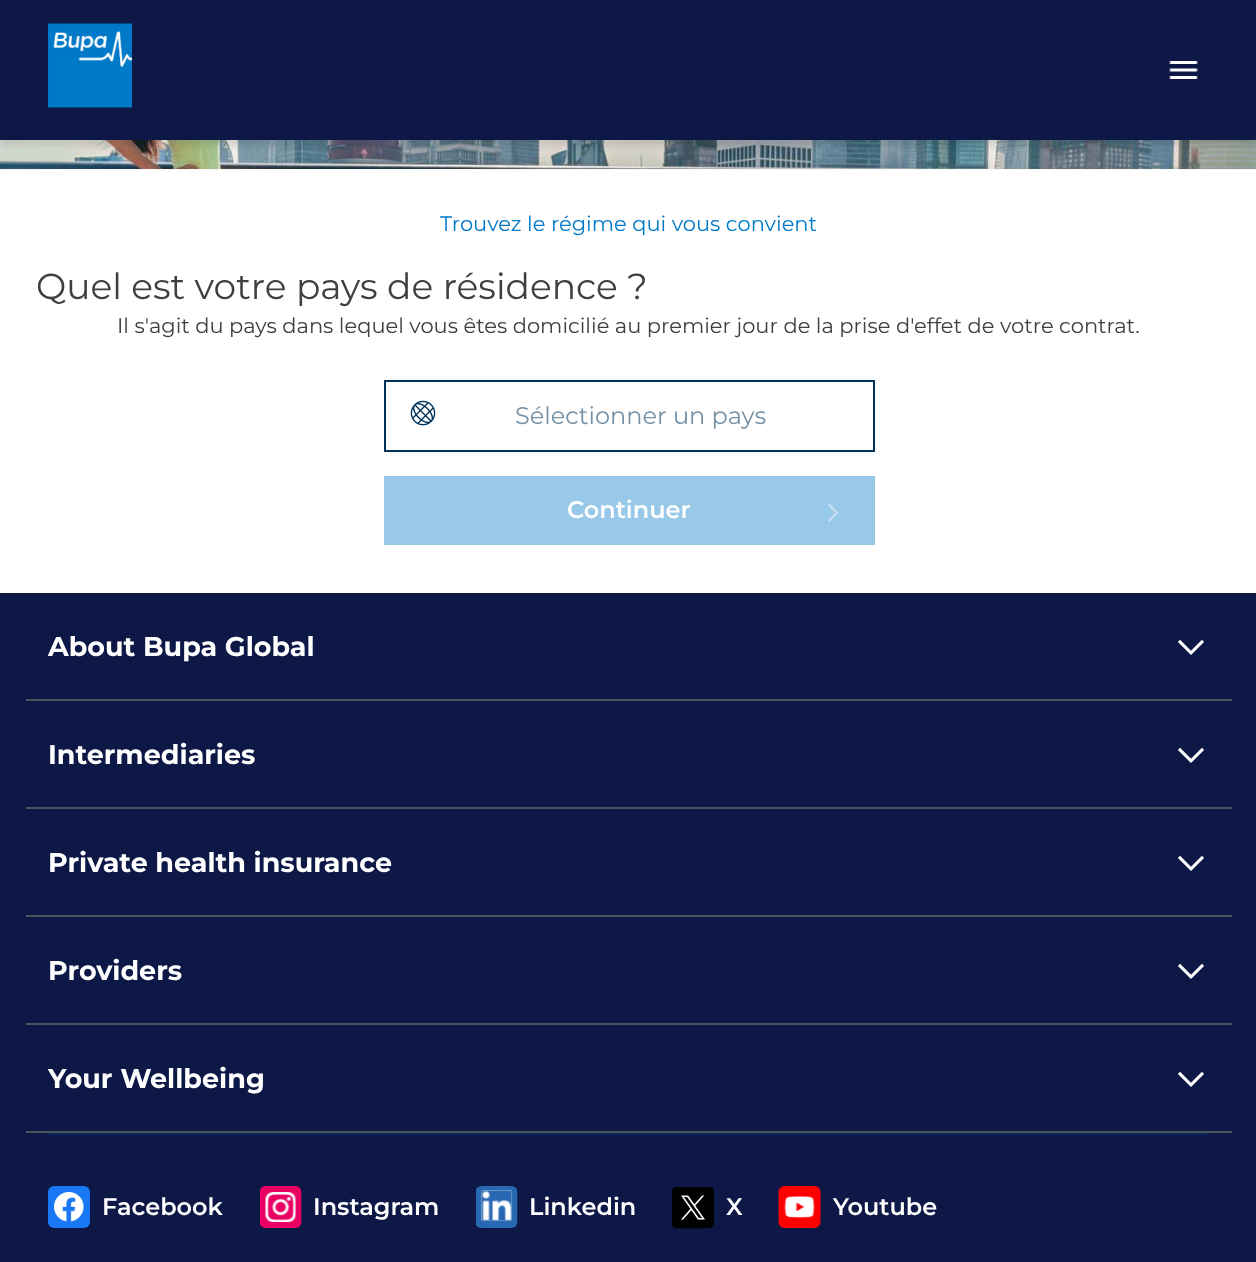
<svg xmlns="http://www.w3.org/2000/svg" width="1256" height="1262">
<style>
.a{font:21px Montserrat;fill:#0079c8}
.b{font:36px Montserrat;fill:#3f3f3f}
.c{font:21px Montserrat;fill:#3f3f3f}
.d{font:24px Montserrat;fill:#7591a6}
.e{font:600 24px Montserrat;fill:#fff}
.f{font:bold 27px Montserrat;fill:#fff}
</style>
<rect width="100%" height="100%" fill="#f7f7f7"/>
<image href="3.png" x="0" y="140" width="1256" height="29"/>
<path fill="#0000001a" filter="blur(3px)" d="M0 6h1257v140H0z"/>
<path fill="#0d1846" d="M0 0h1256v140H0z"/>
<image href="1.png" x="48" y="23" width="84" height="85"/>
<image href="2.png" x="1169" y="61" width="29" height="18"/>
<path fill="#fff" d="M0 170h1256v423H0z"/>
<path fill="none" stroke="#00335b" stroke-width="2" d="M385 381h489v70H385z"/>
<image href="4.png" x="410" y="400" width="26" height="26"/>
<path fill="#99c9e9" d="M384 476h491v69H384z"/>
<image href="5.png" x="828" y="503" width="10" height="19"/>
<path fill="#0d1846" d="M0 593h1256v669H0z"/>
<image href="6.png" x="1178" y="639" width="26" height="16"/>
<path fill="#4b5158" d="M26 699h1206v2H26z"/>
<image href="6.png" x="1178" y="747" width="26" height="16"/>
<path fill="#4b5158" d="M26 807h1206v2H26z"/>
<image href="6.png" x="1178" y="855" width="26" height="16"/>
<path fill="#4b5158" d="M26 915h1206v2H26z"/>
<image href="6.png" x="1178" y="963" width="26" height="16"/>
<path fill="#4b5158" d="M26 1023h1206v2H26z"/>
<image href="6.png" x="1178" y="1071" width="26" height="16"/>
<path fill="#4b5158" d="M26 1131h1206v2H26z"/>
<path fill="#0f2460" d="M48 1133h1161v2H48z"/>
<image href="7.png" x="48" y="1186" width="42" height="42"/>
<image href="8.png" x="260" y="1186" width="42" height="42"/>
<image href="9.png" x="476" y="1186" width="42" height="42"/>
<image href="10.png" x="672" y="1187" width="42" height="42"/>
<image href="11.png" x="778" y="1186" width="43" height="42"/>
<text class="a" x="440" y="231">Trouvez le régime qui vous convient</text>
<text class="b" x="36" y="299">Quel est votre pays de résidence ?</text>
<text class="c" x="117" y="333">Il s'agit du pays dans lequel vous êtes domicilié au premier jour de la prise d'effet de votre contrat.</text>
<text class="d" x="515" y="424">Sélectionner un pays</text>
<text class="e" x="567" y="518">Continuer</text>
<text class="f" x="48" y="656">About Bupa Global</text>
<text class="f" x="48" y="764">Intermediaries</text>
<text class="f" x="48" y="872">Private health insurance</text>
<text class="f" x="48" y="980">Providers</text>
<text class="f" x="48" y="1088">Your Wellbeing</text>
<text class="e" x="102" y="1215">Facebook</text>
<text class="e" x="313" y="1215">Instagram</text>
<text class="e" x="529" y="1215">Linkedin</text>
<text class="e" x="726" y="1215">X</text>
<text class="e" x="833" y="1215">Youtube</text>
</svg>
